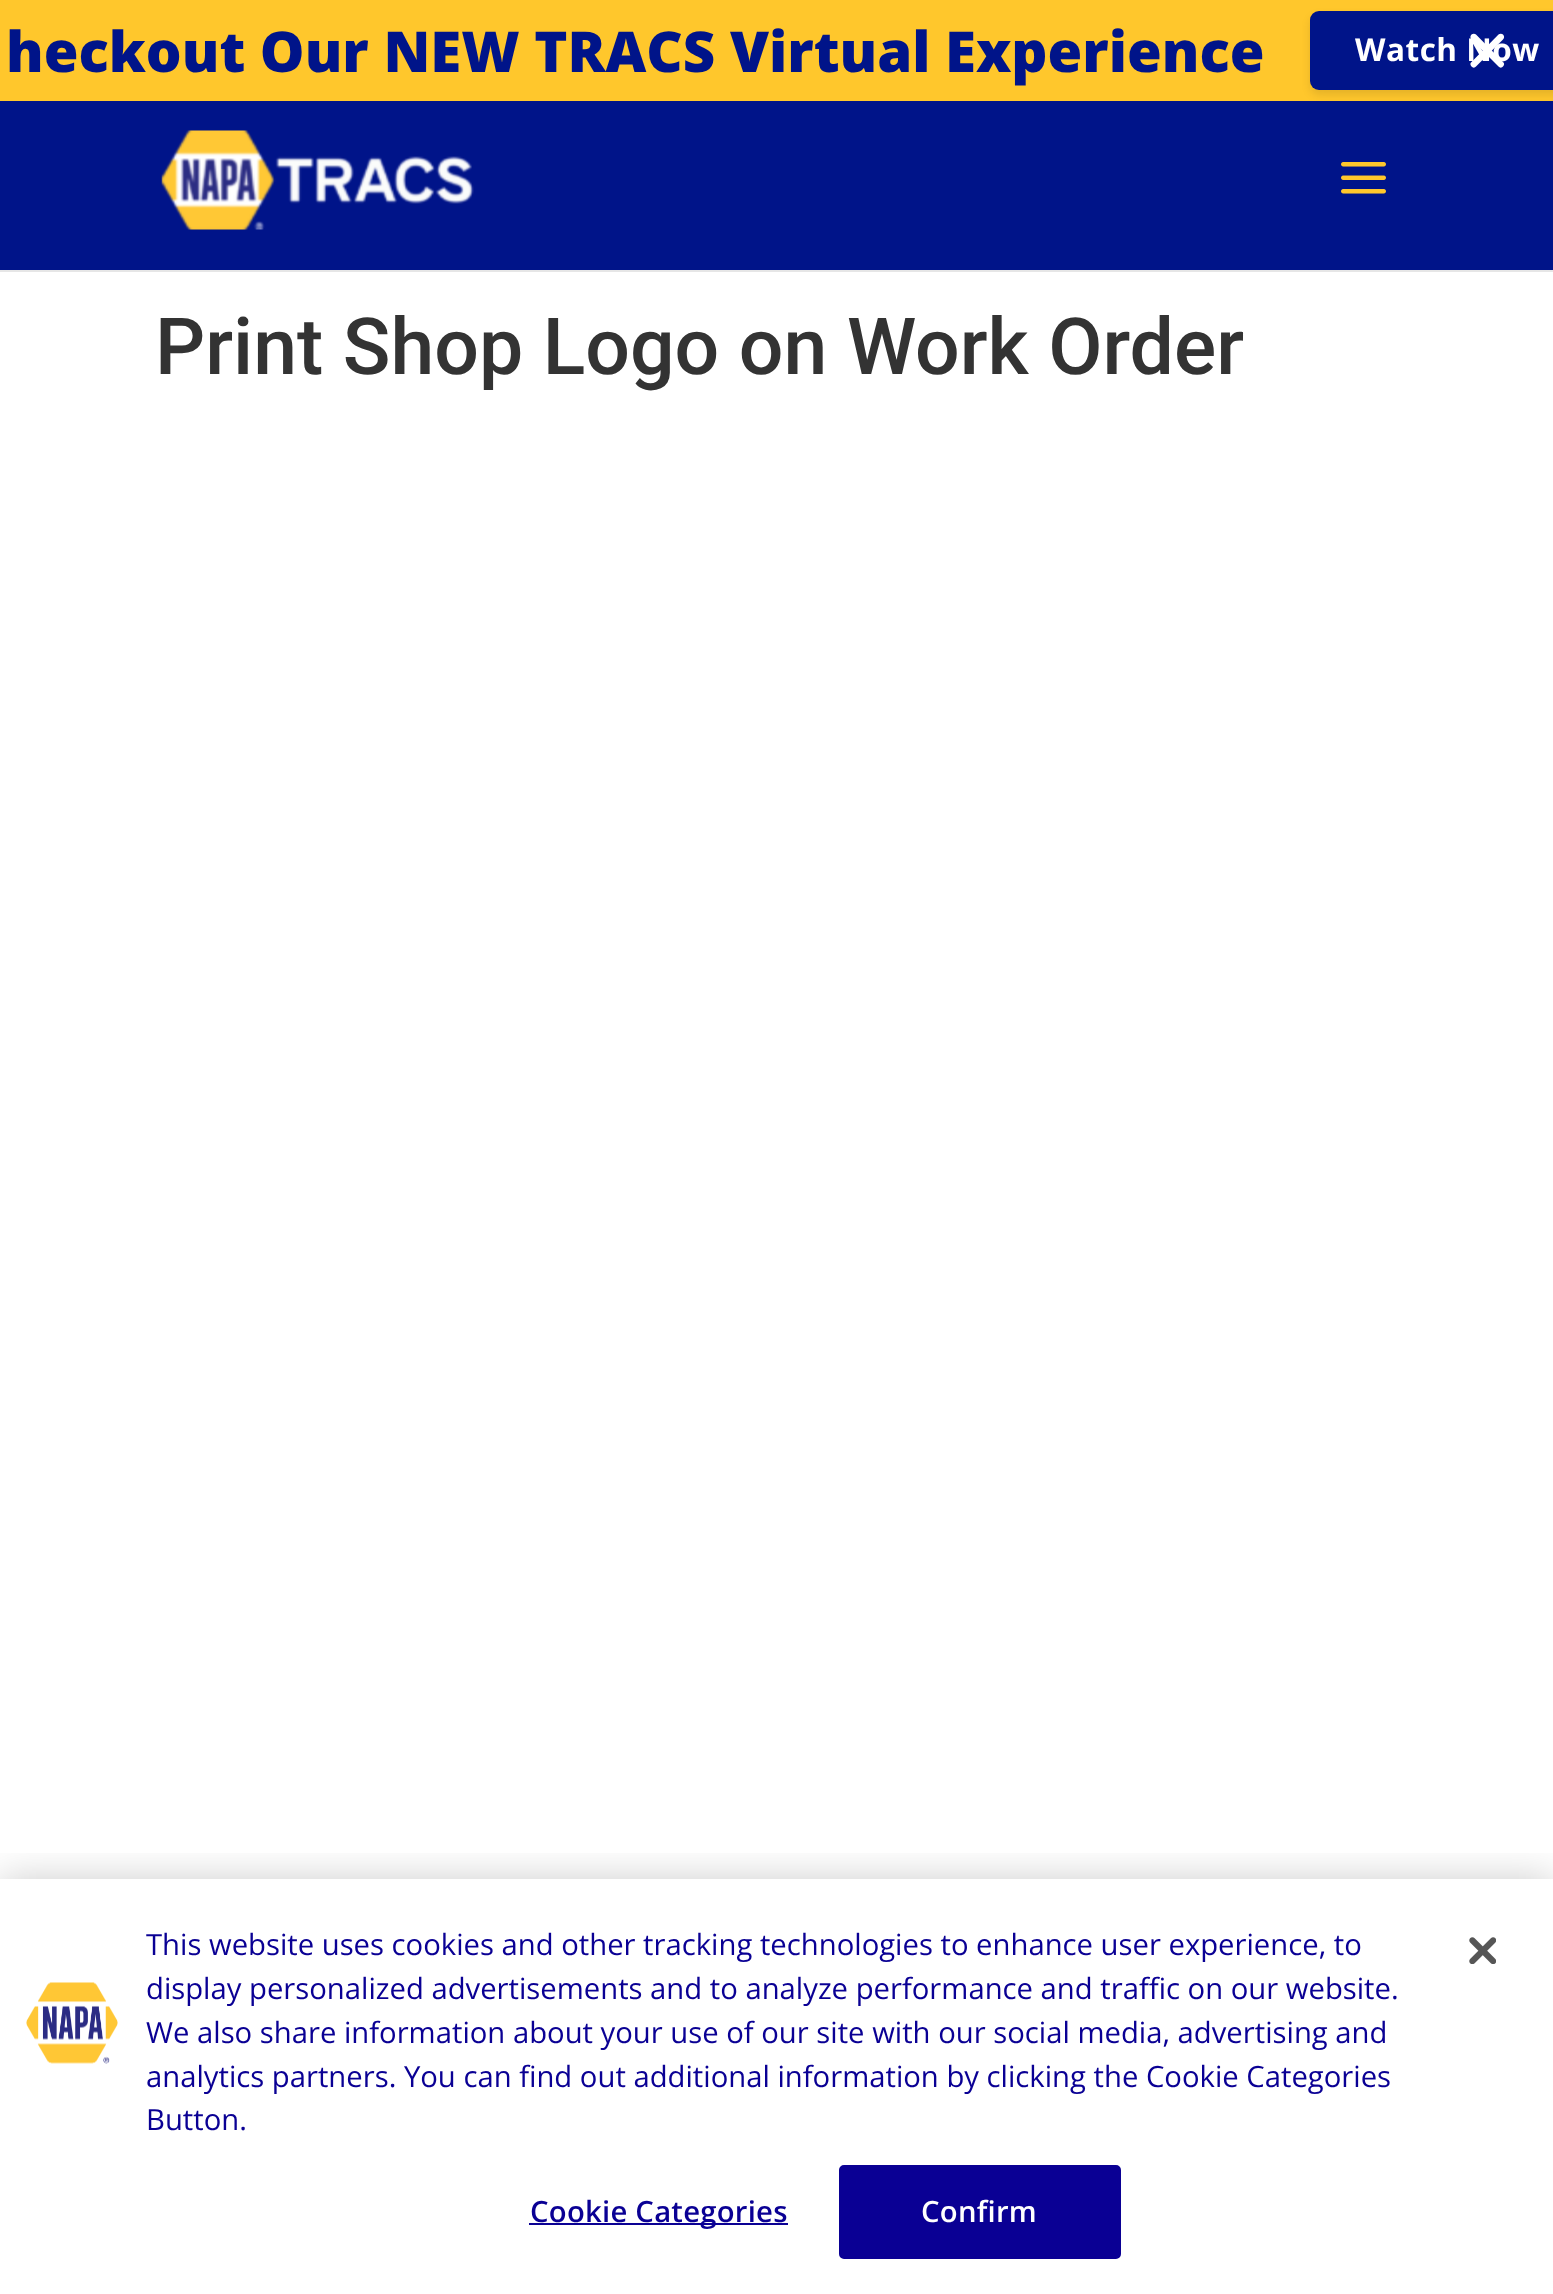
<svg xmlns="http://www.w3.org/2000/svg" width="1553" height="2294">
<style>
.a{font:800 56.25px Open Sans;fill:#001489}
.b{font:bold 31.5px Open Sans;letter-spacing:0.5px;fill:#fff}
.c{font:500 78.75px Roboto;fill:#333}
.d{font:29.25px Open Sans;fill:#0a0094}
.e{font:600 29.25px Open Sans;letter-spacing:0.25px;fill:#0a0094}
.f{font:600 29.25px Open Sans;letter-spacing:0.25px;fill:#fff}
</style>
<defs>
<clipPath id="clip1"><path d="M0 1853h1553v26H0z"/></clipPath>
</defs>
<rect width="100%" height="100%" fill="#fff"/>
<path fill="#ffc72c" d="M0 0h1553v101H0z"/>
<path fill="#001489" d="M0 101h1553v169H0z"/>
<rect fill="#0000001a" filter="blur(4.5px)" x="1310" y="16" width="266" height="79" rx="9"/>
<rect fill="#001489" x="1310" y="11" width="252" height="79" rx="9"/>
<path fill="#fff" d="M1471.5 62l27-27.5c1-1 3.5-1 4.5 0c1.5 1.5 1.5 3.5 0 5l-27 27c-1 1.5-3.5 1.5-4.5 0c-1.5-1.5-1.5-3.5 0-4.5z"/>
<path fill="#fff" d="M1476 34.5l27 27.5c1.5 1 1.5 3 0 4.5c-1 1.5-3.5 1.5-4.5 0l-27-27c-1.5-1.5-1.5-3.5 0-5c1-1 3.5-1 4.5 0z"/>
<path fill="#e6e6e6" d="M0 270v2h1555v-180v178z"/>
<image href="1.png" x="161" y="130" width="313" height="100"/>
<image href="2.png" x="1341" y="162" width="45" height="32"/>
<g clip-path="url(#clip1)">
<path fill="#00000033" filter="blur(20px)" d="M0 1879h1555v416H0z"/>
</g>
<image href="3.png" x="26" y="1982" width="92" height="82"/>
<path fill="#0a0094" d="M529 2223h259v2H529z"/>
<rect fill="#0a0094" stroke="#0a0094" stroke-width="2" x="840" y="2166" width="280" height="92" rx="4"/>
<image href="4.png" x="1469" y="1937" width="27" height="27"/>
<text class="a" x="6" y="72">heckout Our NEW TRACS Virtual Experience</text>
<text class="b" x="1355" y="61">Watch Now</text>
<text class="c" x="155" y="374">Print Shop Logo on Work Order</text>
<text class="d" x="146" y="1955">This website uses cookies and other tracking technologies to enhance user experience, to</text>
<text class="d" x="146" y="1999">display personalized advertisements and to analyze performance and traffic on our website.</text>
<text class="d" x="146" y="2043">We also share information about your use of our site with our social media, advertising and</text>
<text class="d" x="146" y="2087">analytics partners. You can find out additional information by clicking the Cookie Categories</text>
<text class="d" x="146" y="2130">Button.</text>
<text class="e" x="530" y="2222">Cookie Categories</text>
<text class="f" x="921" y="2222">Confirm</text>
</svg>
